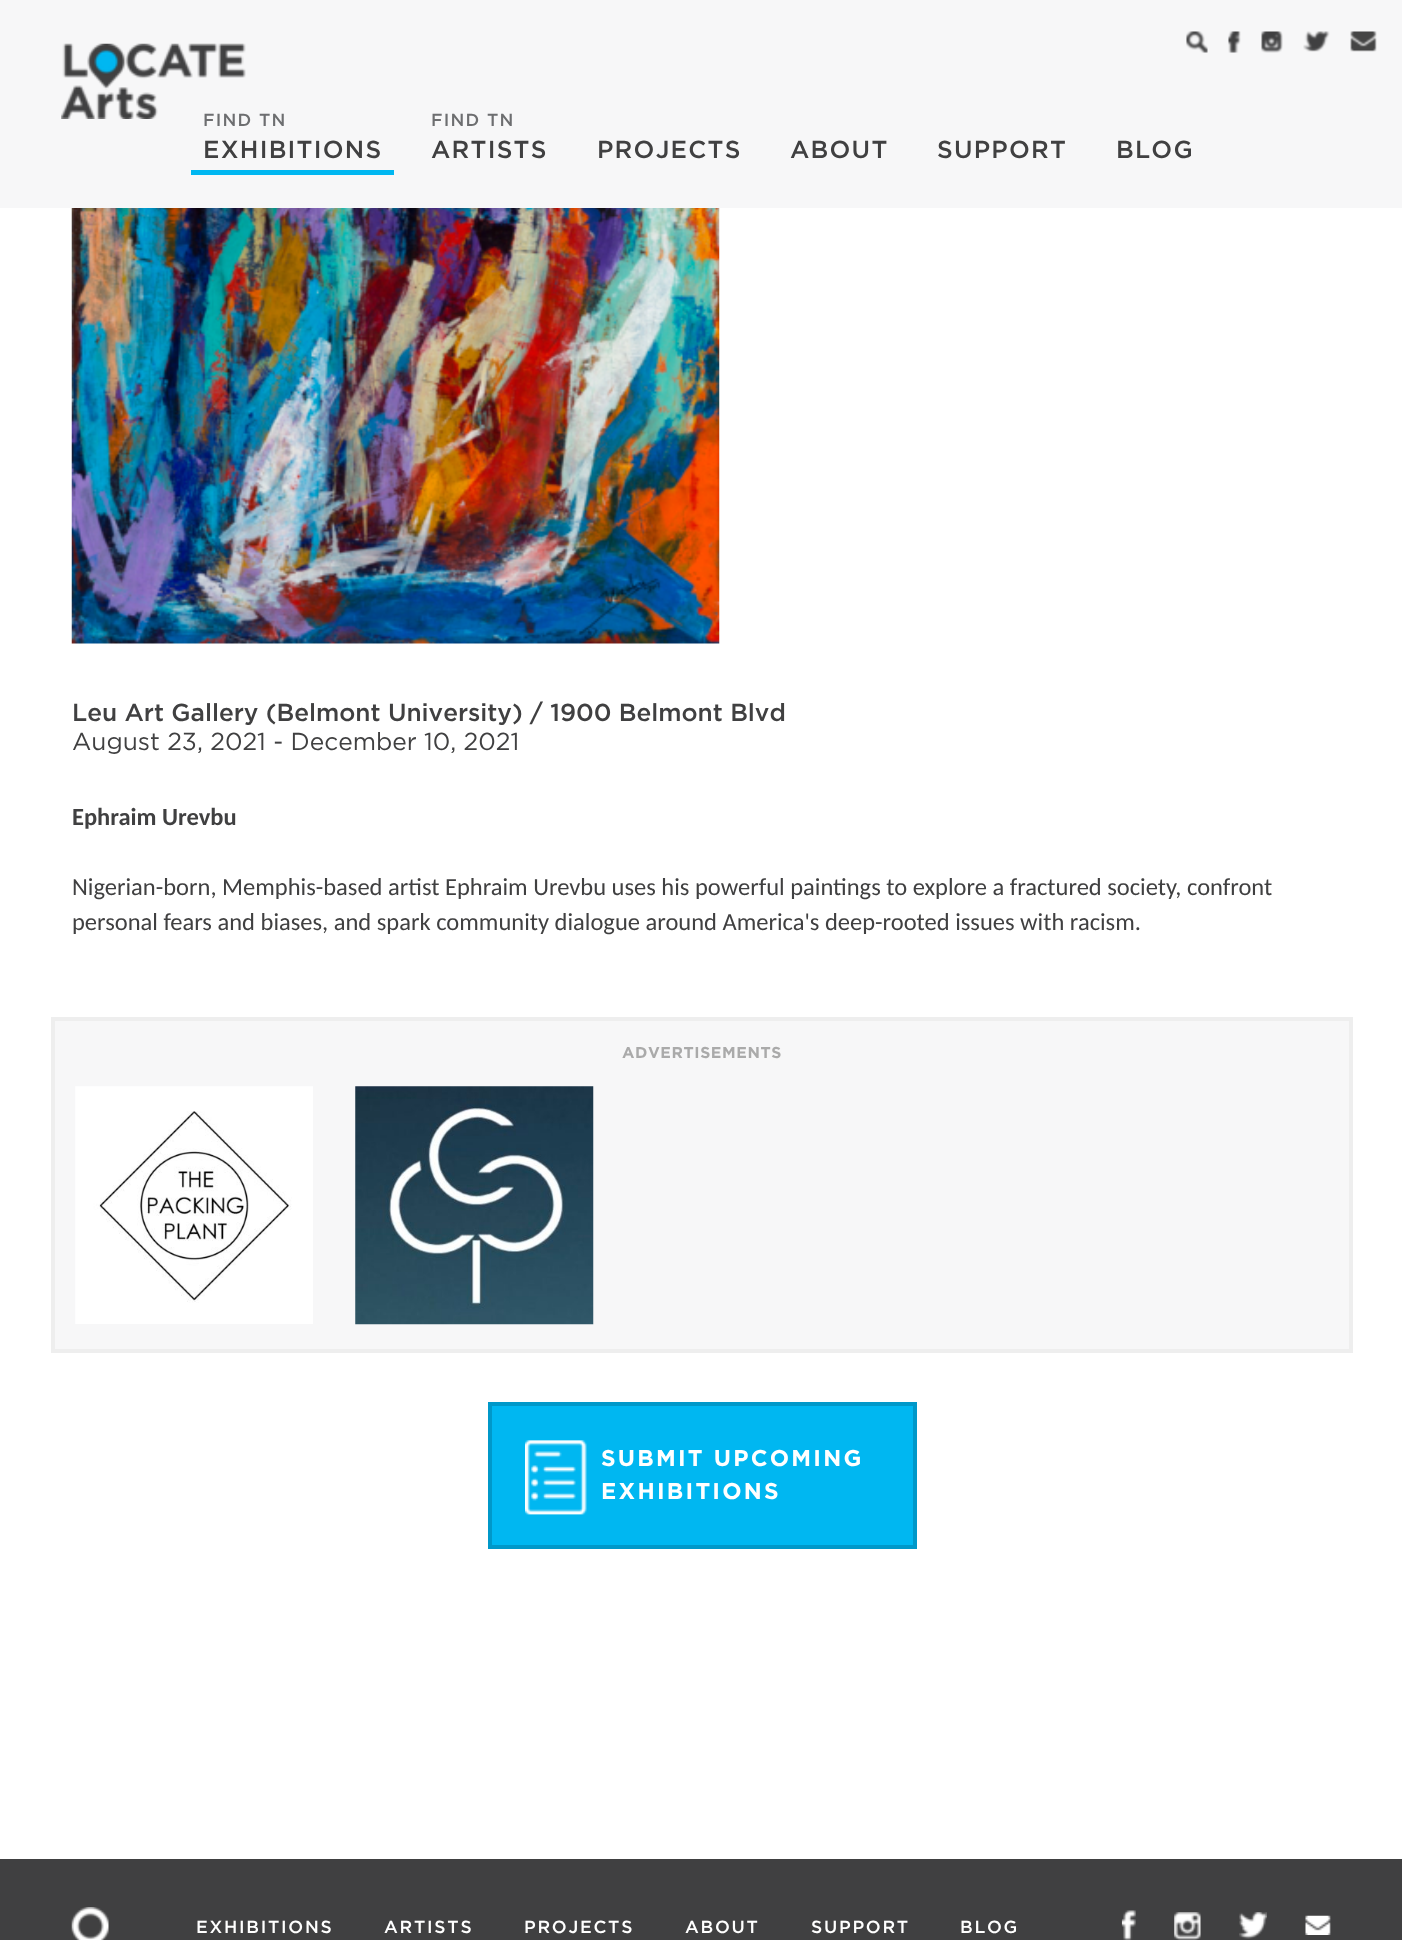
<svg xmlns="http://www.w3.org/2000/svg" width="1402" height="1940">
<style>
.a{font:500 17.5px Gotham;letter-spacing:1.25px;fill:#6d6e70}
.b{font:500 24.5px Gotham;letter-spacing:1.25px;fill:#404041}
.c{font:500 24.5px Gotham;fill:#404041}
.d{font:24.5px Gotham;fill:#404041}
.e{font:bold 24.5px Carlito;fill:#404041}
.f{font:24.5px Carlito;fill:#404041}
.g{font:bold 15.75px Gotham;letter-spacing:0.6px;fill:#aaa}
.h{font:bold 22.75px Gotham;letter-spacing:2.25px;fill:#fff}
.i{font:500 17.5px Gotham;letter-spacing:1.75px;fill:#fff}
</style>
<rect width="100%" height="100%" fill="#fff"/>
<path fill="#f7f7f8" d="M0 0h1402v208H0z"/>
<image href="1.png" x="61" y="43" width="185" height="76"/>
<image href="2.png" x="1186" y="31" width="22" height="22"/>
<image href="3.png" x="1228" y="31" width="13" height="22"/>
<image href="4.png" x="1261" y="31" width="22" height="22"/>
<image href="5.png" x="1303" y="31" width="27" height="21"/>
<image href="6.png" x="1350" y="31" width="27" height="21"/>
<path fill="#00b7f1" d="M191 170h203v5H191z"/>
<image href="7.png" x="71" y="208" width="649" height="436"/>
<path fill="#f7f7f8" stroke="#eee" stroke-width="4" d="M53 1019h1298v332H53z"/>
<image href="8.png" x="75" y="1086" width="238" height="238"/>
<image href="9.png" x="355" y="1086" width="239" height="239"/>
<path fill="#00b7f1" stroke="#0098c9" stroke-width="4" d="M490 1404h425v143H490z"/>
<image href="10.png" x="525" y="1440" width="62" height="75"/>
<path fill="#404041" d="M0 1859h1402v81H0z"/>
<image href="11.png" x="71" y="1907" width="38" height="33"/>
<image href="12.png" x="1121" y="1910" width="15" height="30"/>
<image href="13.png" x="1174" y="1912" width="27" height="28"/>
<image href="14.png" x="1239" y="1912" width="28" height="27"/>
<image href="15.png" x="1305" y="1915" width="26" height="20"/>
<text class="a" x="203" y="126">FIND TN</text>
<text class="b" x="203" y="158">EXHIBITIONS</text>
<text class="a" x="431" y="126">FIND TN</text>
<text class="b" x="431" y="158">ARTISTS</text>
<text class="b" x="597" y="158">PROJECTS</text>
<text class="b" x="790" y="158">ABOUT</text>
<text class="b" x="937" y="158">SUPPORT</text>
<text class="b" x="1116" y="158">BLOG</text>
<text class="c" x="72" y="721">Leu Art Gallery (Belmont University) / 1900 Belmont Blvd</text>
<text class="d" x="72" y="750">August 23, 2021 - December 10, 2021</text>
<text class="e" x="72" y="825">Ephraim Urevbu</text>
<text class="f" x="72" y="895">Nigerian-born, Memphis-based artist Ephraim Urevbu uses his powerful paintings to explore a fractured society, confront</text>
<text class="f" x="72" y="930">personal fears and biases, and spark community dialogue around America's deep-rooted issues with racism.</text>
<text class="g" x="622" y="1058">ADVERTISEMENTS</text>
<text class="h" x="601" y="1466">SUBMIT UPCOMING</text>
<text class="h" x="601" y="1499">EXHIBITIONS</text>
<text class="i" x="196" y="1933">EXHIBITIONS</text>
<text class="i" x="384" y="1933">ARTISTS</text>
<text class="i" x="524" y="1933">PROJECTS</text>
<text class="i" x="685" y="1933">ABOUT</text>
<text class="i" x="811" y="1933">SUPPORT</text>
<text class="i" x="960" y="1933">BLOG</text>
</svg>
